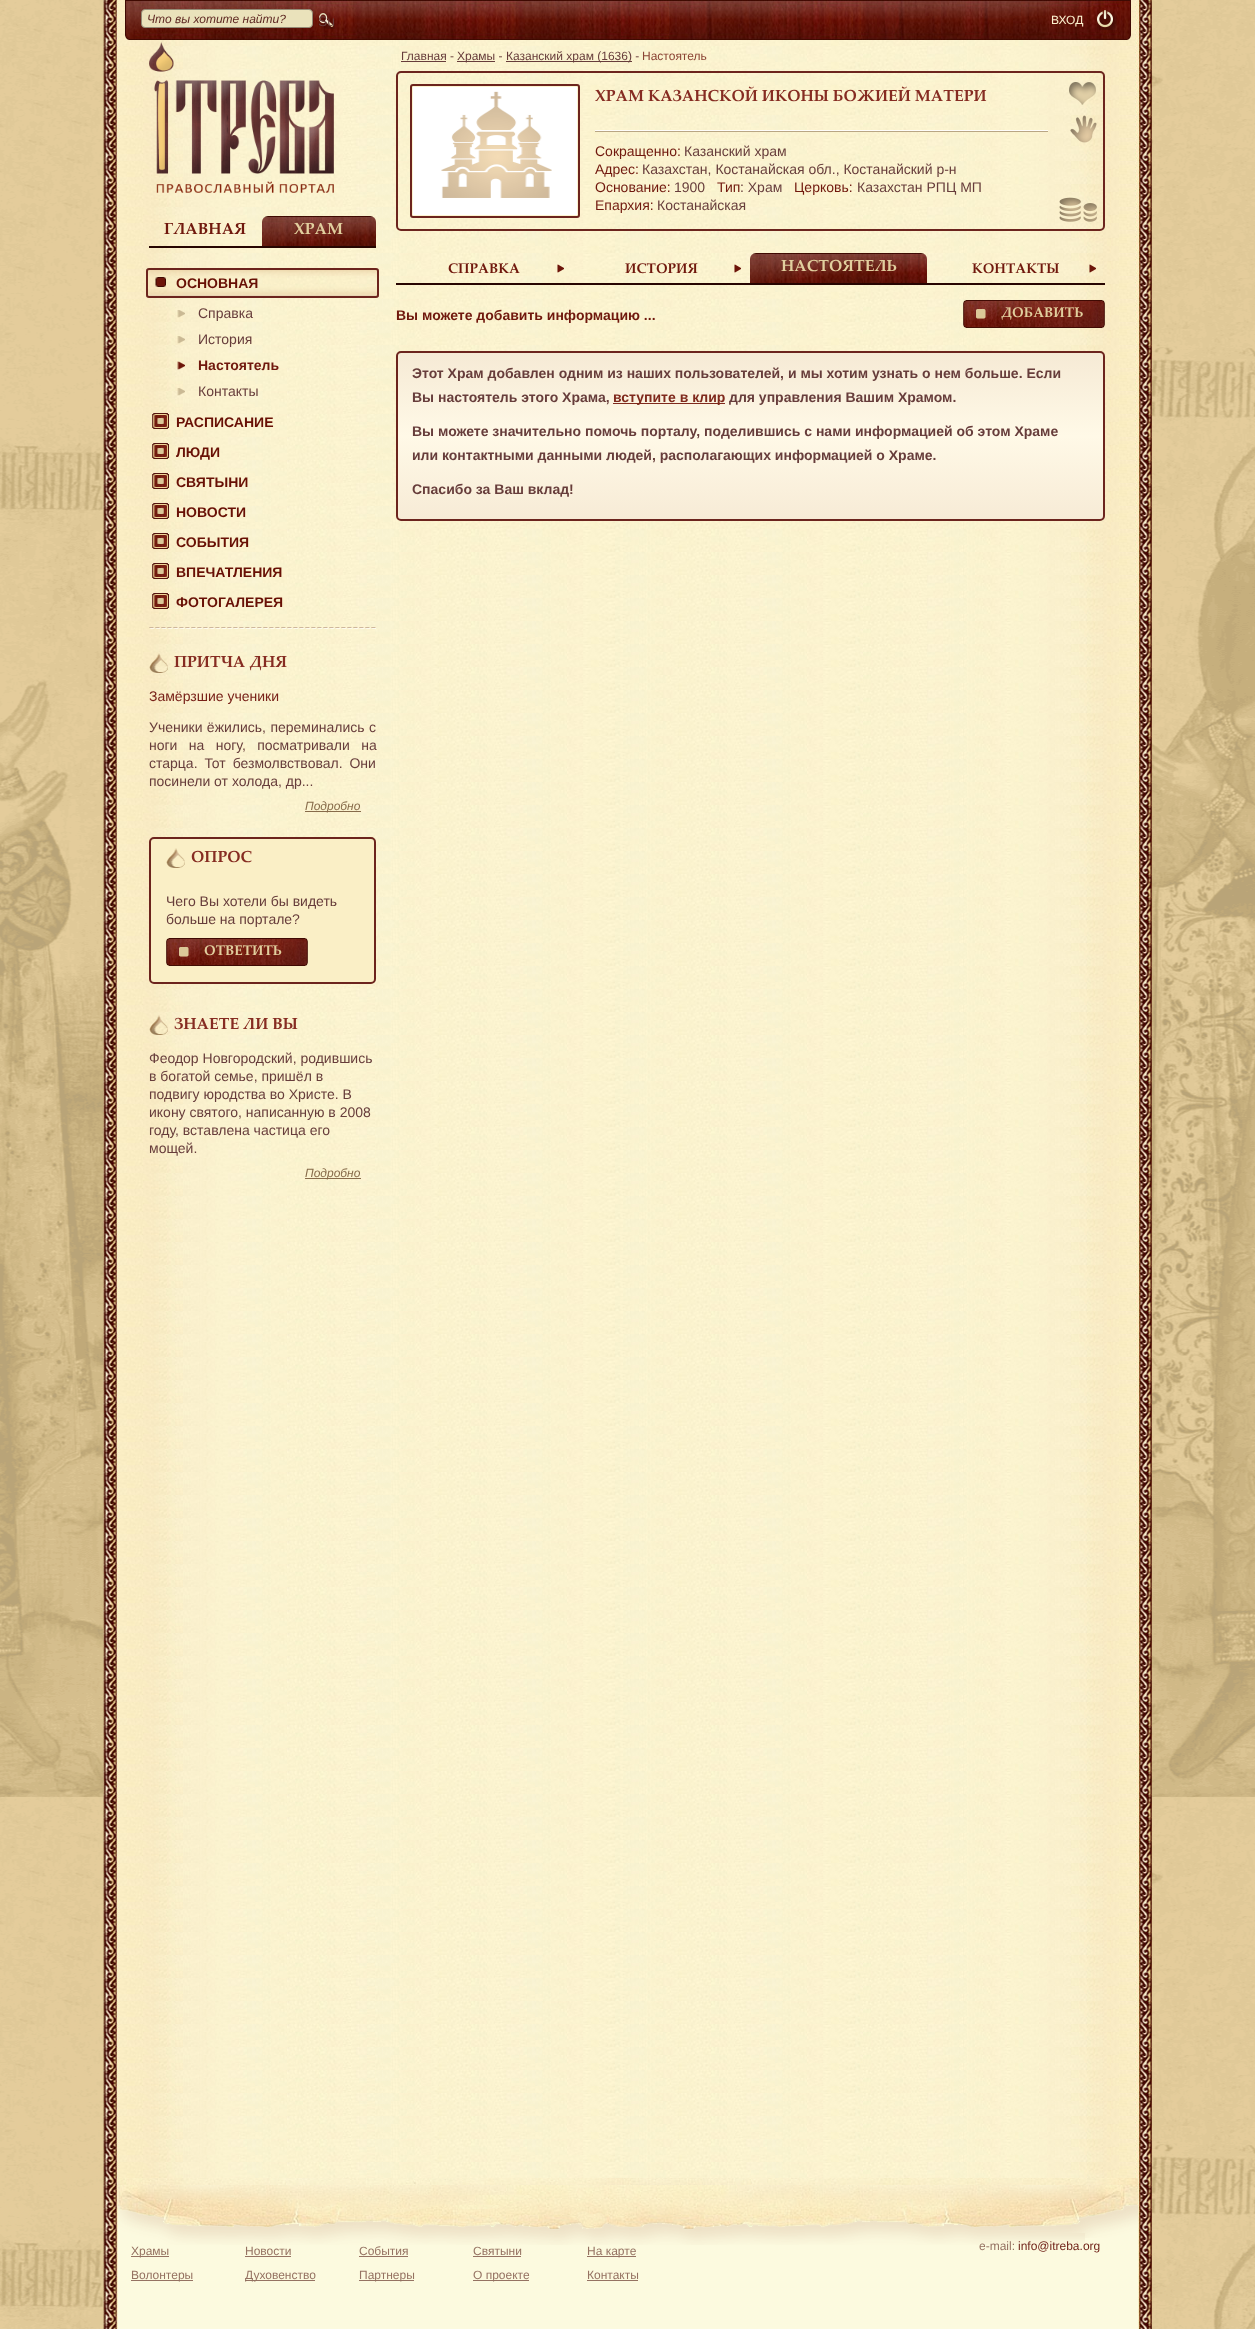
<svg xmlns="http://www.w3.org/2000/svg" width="1255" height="2329">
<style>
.a{font:italic 12px Liberation Sans;fill:#5e2923}
.b{font:14px Liberation Sans;fill:#673d3b}
.c{font:12px Liberation Sans;fill:#fcf3cf}
.d{font:bold 16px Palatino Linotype;fill:#70180d}
.e{font:bold 16px Palatino Linotype;fill:#e1cf9e}
.f{font:bold 14px Liberation Sans;fill:#681005}
.g{font:bold 14px Liberation Sans;fill:#70180d}
.h{font:bold 16px Palatino Linotype;fill:#862c22}
.i{font:14px Liberation Sans;fill:#782118}
.j{font:italic 12px Liberation Sans;fill:#876b4a}
.k{font:bold 14px Palatino Linotype;fill:#e1cf9e}
.l{font:12px Liberation Sans;fill:#673d3b}
.m{font:12px Liberation Sans;fill:#8b4434}
.n{font:14px Liberation Sans;fill:#70180d}
.o{font:bold 14px Palatino Linotype;fill:#70180d}
.p{font:bold 14px Liberation Sans;fill:#673d3b}
.q{font:bold 14px Liberation Sans;fill:#7f291c}
.r{font:12px Liberation Sans;fill:#957262}
.s{font:12px Liberation Sans;fill:#6d1e15}
</style>
<defs>
<clipPath id="clip1"><rect x="396" y="351" width="709" height="170" rx="5"/></clipPath>
<linearGradient id="g1" gradientUnits="userSpaceOnUse" x1="751" y1="353" x2="751" y2="519"><stop offset="0" stop-color="#f6ead5"/><stop offset="0.5" stop-color="#fff9e7"/><stop offset="1" stop-color="#f7ebd6"/></linearGradient>
</defs>
<rect width="100%" height="100%" fill="#fce5b4"/>
<image href="1.png" x="0" y="0" width="1255" height="2329"/>
<image href="2.png" x="103" y="0" width="1049" height="2329"/>
<image href="3.png" x="135" y="0" width="986" height="40"/>
<image href="4.png" x="125" y="0" width="10" height="40"/>
<rect fill="#eae2bb" stroke="#938b76" x="141.5" y="9.5" width="171" height="18" rx="3.5"/>
<image href="5.png" x="318" y="12" width="17" height="17"/>
<image href="6.png" x="1097" y="10" width="20" height="20"/>
<image href="7.png" x="1121" y="0" width="10" height="40"/>
<image href="8.png" x="149" y="42" width="185" height="151"/>
<path fill="#270501" d="M149 246h227v2H149z"/>
<image href="9.png" x="262" y="216" width="114" height="30"/>
<image href="10.png" x="146" y="268" width="233" height="29"/>
<image href="11.png" x="155" y="277" width="11" height="10"/>
<rect fill="none" stroke="#6c241d" stroke-width="2" x="147" y="269" width="231" height="28" rx="2"/>
<image href="12.png" x="177" y="310" width="8" height="8"/>
<image href="13.png" x="177" y="336" width="8" height="8"/>
<image href="14.png" x="177" y="361" width="8" height="9"/>
<image href="15.png" x="177" y="388" width="8" height="8"/>
<image href="16.png" x="152" y="413" width="17" height="16"/>
<image href="17.png" x="152" y="443" width="17" height="16"/>
<image href="18.png" x="152" y="473" width="17" height="16"/>
<image href="19.png" x="152" y="503" width="17" height="16"/>
<image href="20.png" x="152" y="533" width="17" height="16"/>
<image href="21.png" x="152" y="563" width="17" height="16"/>
<image href="22.png" x="152" y="593" width="17" height="16"/>
<image href="23.png" x="149" y="627" width="227" height="2"/>
<image href="24.png" x="149" y="653" width="19" height="20"/>
<path fill="#876b4a" d="M305 811h56v1H305z"/>
<rect fill="#faefc6" stroke="#6c241d" stroke-width="2" x="150" y="838" width="225" height="145" rx="4"/>
<image href="25.png" x="166" y="848" width="19" height="20"/>
<image href="26.png" x="166" y="938" width="142" height="28"/>
<image href="27.png" x="149" y="1015" width="19" height="20"/>
<path fill="#876b4a" d="M305 1178h56v1H305z"/>
<path fill="#673d3b" d="M401 61h45v1H401z"/>
<path fill="#673d3b" d="M457 61h38v1H457z"/>
<path fill="#673d3b" d="M506 61h126v1H506z"/>
<rect fill="none" stroke="#6c241d" stroke-width="2" x="397" y="72" width="707" height="158" rx="4"/>
<rect fill="#fcf3cf" stroke="#6c241d" stroke-width="2" x="411" y="85" width="168" height="132" rx="2"/>
<image href="28.png" x="413" y="87" width="164" height="128"/>
<image href="29.png" x="595" y="130" width="453" height="2"/>
<image href="30.png" x="1069" y="82" width="27" height="23"/>
<image href="31.png" x="1070" y="115" width="27" height="28"/>
<image href="32.png" x="1059" y="197" width="38" height="25"/>
<path fill="#270501" d="M396 283h709v2H396z"/>
<image href="33.png" x="557" y="264" width="7" height="9"/>
<image href="34.png" x="734" y="264" width="7" height="9"/>
<image href="35.png" x="750" y="253" width="177" height="30"/>
<image href="36.png" x="1089" y="264" width="7" height="9"/>
<image href="37.png" x="963" y="300" width="142" height="28"/>
<g clip-path="url(#clip1)">
<path fill="url(#g1)" d="M396 353h709v166H396z"/>
</g>
<rect fill="none" stroke="#6c241d" stroke-width="2" x="397" y="352" width="707" height="168" rx="4"/>
<path fill="#7f291c" d="M613 403h112v1H613z"/>
<path fill="#fcfadf" d="M118 2245h1020v84H118z"/>
<image href="38.png" x="118" y="2178" width="1020" height="67"/>
<path fill="#957262" d="M131 2256h38v1H131z"/>
<path fill="#957262" d="M245 2256h46v1H245z"/>
<path fill="#957262" d="M359 2256h49v1H359z"/>
<path fill="#957262" d="M473 2256h48v1H473z"/>
<path fill="#957262" d="M587 2256h49v1H587z"/>
<path fill="#957262" d="M131 2280h62v1H131z"/>
<path fill="#957262" d="M245 2280h70v1H245z"/>
<path fill="#957262" d="M359 2280h55v1H359z"/>
<path fill="#957262" d="M473 2280h56v1H473z"/>
<path fill="#957262" d="M587 2280h51v1H587z"/>
<text class="a" x="147" y="23">Что вы хотите найти?</text>
<text class="b" x="318" y="26">Su</text>
<text class="c" x="1051" y="24">ВХОД</text>
<text class="d" x="164" y="234">ГЛАВНАЯ</text>
<text class="e" x="294" y="234">ХРАМ</text>
<text class="f" x="176" y="288">ОСНОВНАЯ</text>
<text class="b" x="198" y="318">Справка</text>
<text class="b" x="198" y="344">История</text>
<text class="g" x="198" y="370">Настоятель</text>
<text class="b" x="198" y="396">Контакты</text>
<text class="f" x="176" y="427">РАСПИСАНИЕ</text>
<text class="f" x="176" y="457">ЛЮДИ</text>
<text class="f" x="176" y="487">СВЯТЫНИ</text>
<text class="f" x="176" y="517">НОВОСТИ</text>
<text class="f" x="176" y="547">СОБЫТИЯ</text>
<text class="f" x="176" y="577">ВПЕЧАТЛЕНИЯ</text>
<text class="f" x="176" y="607">ФОТОГАЛЕРЕЯ</text>
<text class="h" x="174" y="667">ПРИТЧА ДНЯ</text>
<text class="i" x="149" y="701">Замёрзшие ученики</text>
<text class="b" x="149" y="732" word-spacing="0.5">Ученики ёжились, переминались с</text>
<text class="b" x="149" y="750" word-spacing="7.5">ноги на ногу, посматривали на</text>
<text class="b" x="149" y="768" word-spacing="3">старца. Тот безмолвствовал. Они</text>
<text class="b" x="149" y="786">посинели от холода, др...</text>
<text class="j" x="305" y="810">Подробно</text>
<text class="h" x="191" y="862">ОПРОС</text>
<text class="b" x="166" y="906">Чего Вы хотели бы видеть</text>
<text class="b" x="166" y="924">больше на портале?</text>
<text class="k" x="204" y="955">ОТВЕТИТЬ</text>
<text class="h" x="174" y="1029">ЗНАЕТЕ ЛИ ВЫ</text>
<text class="b" x="149" y="1063">Феодор Новгородский, родившись</text>
<text class="b" x="149" y="1081">в богатой семье, пришёл в</text>
<text class="b" x="149" y="1099">подвигу юродства во Христе. В</text>
<text class="b" x="149" y="1117">икону святого, написанную в 2008</text>
<text class="b" x="149" y="1135">году, вставлена частица его</text>
<text class="b" x="149" y="1153">мощей.</text>
<text class="j" x="305" y="1177">Подробно</text>
<text class="l" x="401" y="60">Главная -</text>
<text class="l" x="457" y="60">Храмы -</text>
<text class="l" x="506" y="60">Казанский храм (1636) -</text>
<text class="m" x="642" y="60">Настоятель</text>
<text class="h" x="595" y="101">ХРАМ КАЗАНСКОЙ ИКОНЫ БОЖИЕЙ МАТЕРИ</text>
<text class="n" x="595" y="156">Сокращенно:</text>
<text class="b" x="684" y="156">Казанский храм</text>
<text class="n" x="595" y="174">Адрес:</text>
<text class="b" x="642" y="174">Казахстан, Костанайская обл., Костанайский р-н</text>
<text class="n" x="595" y="192">Основание:</text>
<text class="b" x="674" y="192">1900</text>
<text class="n" x="717" y="192">Тип</text>
<text class="b" x="740" y="192">: Храм</text>
<text class="n" x="794" y="192">Церковь:</text>
<text class="b" x="857" y="192">Казахстан РПЦ МП</text>
<text class="n" x="595" y="210">Епархия:</text>
<text class="b" x="657" y="210">Костанайская</text>
<text class="o" x="448" y="273">СПРАВКА</text>
<text class="o" x="625" y="273">ИСТОРИЯ</text>
<text class="e" x="781" y="271">НАСТОЯТЕЛЬ</text>
<text class="o" x="972" y="273">КОНТАКТЫ</text>
<text class="g" x="396" y="320">Вы можете добавить информацию ...</text>
<text class="k" x="1001" y="317">ДОБАВИТЬ</text>
<text class="p" x="412" y="378">Этот Храм добавлен одним из наших пользователей, и мы хотим узнать о нем больше. Если</text>
<text class="p" x="412" y="402">Вы настоятель этого Храма,</text>
<text class="q" x="613" y="402">вступите в клир</text>
<text class="p" x="729" y="402">для управления Вашим Храмом.</text>
<text class="p" x="412" y="436">Вы можете значительно помочь порталу, поделившись с нами информацией об этом Храме</text>
<text class="p" x="412" y="460">или контактными данными людей, располагающих информацией о Храме.</text>
<text class="p" x="412" y="494">Спасибо за Ваш вклад!</text>
<text class="r" x="131" y="2255">Храмы</text>
<text class="r" x="245" y="2255">Новости</text>
<text class="r" x="359" y="2255">События</text>
<text class="r" x="473" y="2255">Святыни</text>
<text class="r" x="587" y="2255">На карте</text>
<text class="r" x="131" y="2279">Волонтеры</text>
<text class="r" x="245" y="2279">Духовенство</text>
<text class="r" x="359" y="2279">Партнеры</text>
<text class="r" x="473" y="2279">О проекте</text>
<text class="r" x="587" y="2279">Контакты</text>
<text class="r" x="979" y="2250">e-mail:</text>
<text class="s" x="1018" y="2250">info@itreba.org</text>
</svg>
